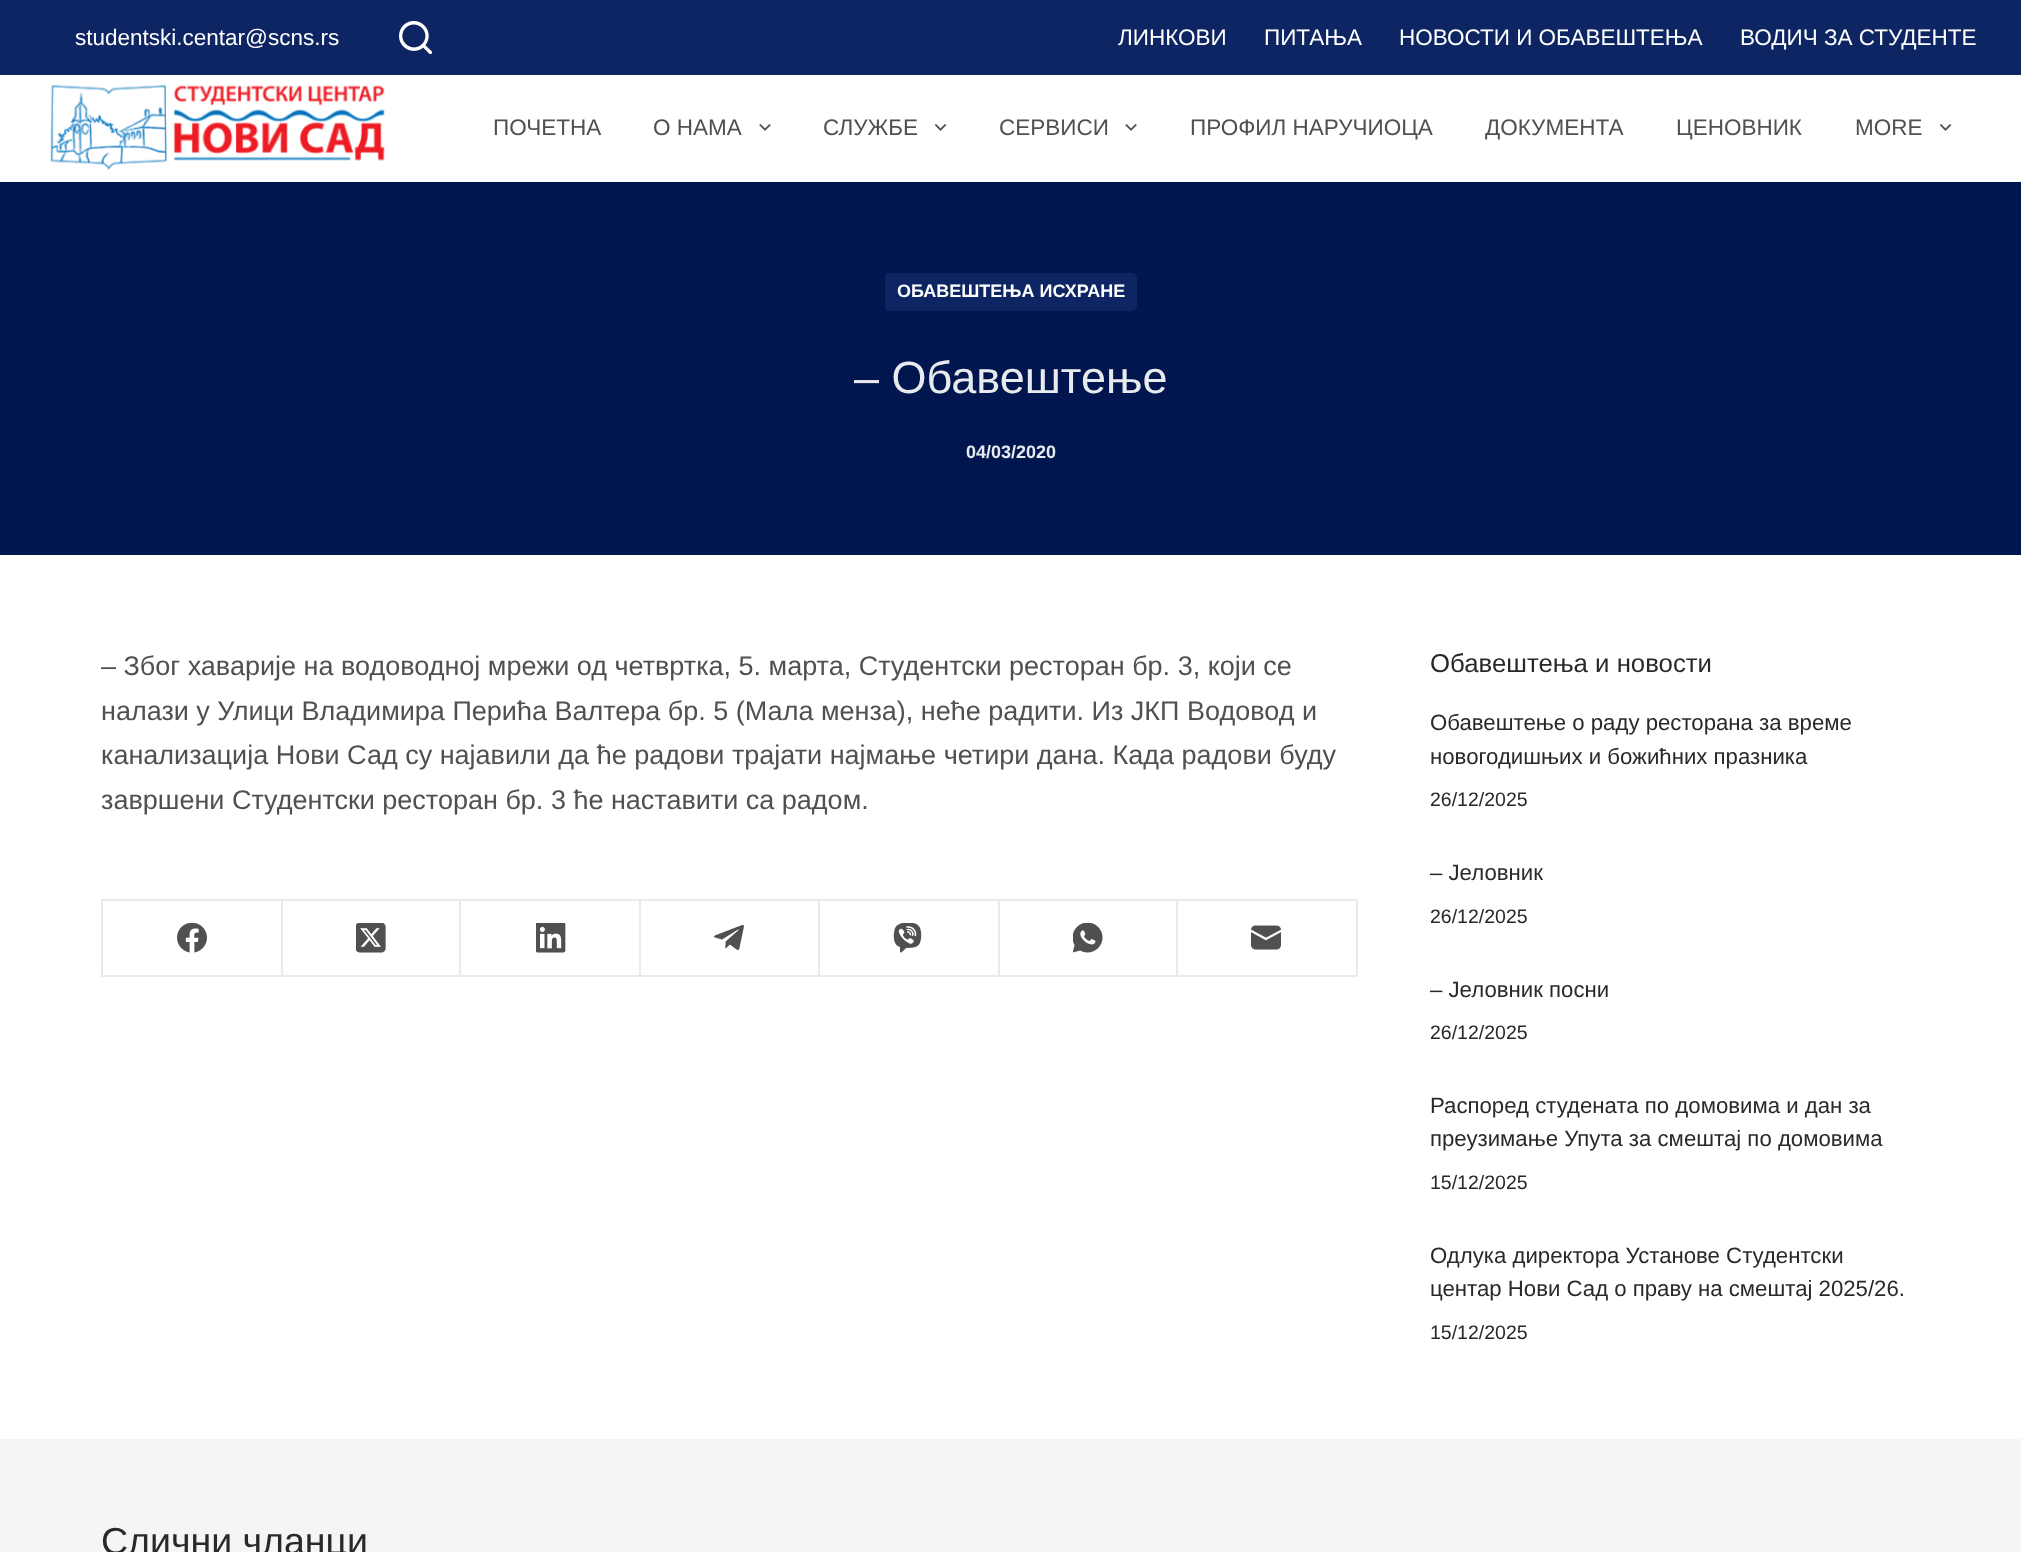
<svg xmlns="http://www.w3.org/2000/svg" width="2021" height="1552">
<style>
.a{font:22.5px Liberation Sans;fill:#fff}
.b{font:22.5px Liberation Sans;fill:#505050}
.c{font:bold 18px Liberation Sans;fill:#fff}
.d{font:45px Liberation Sans;fill:#e8ebed}
.e{font:bold 18px Liberation Sans;fill:#e8ebed}
.f{font:27px Liberation Sans;fill:#505050}
.g{font:25.75px Liberation Sans;fill:#28292a}
.h{font:22.2px Liberation Sans;fill:#28292a}
.i{font:19.5px Liberation Sans;fill:#28292a}
.j{font:37.5px Liberation Sans;fill:#28292a}
</style>
<rect width="100%" height="100%" fill="#fff"/>
<path fill="#0d2562" d="M0 0h2021v75H0z"/>
<image href="1.png" x="399" y="21" width="33" height="33"/>
<image href="2.png" x="50" y="84" width="335" height="86"/>
<image href="3.png" x="759" y="124" width="12" height="7"/>
<image href="4.png" x="935" y="124" width="12" height="7"/>
<image href="3.png" x="1125" y="124" width="12" height="7"/>
<image href="4.png" x="1940" y="124" width="12" height="7"/>
<path fill="#01164e" d="M0 182h2021v373H0z"/>
<rect fill="#0d2562" x="885" y="273" width="252" height="38" rx="5"/>
<path fill="#e8ebed" d="M101 899h1257v2H101z"/>
<path fill="#e8ebed" d="M101 899h2v78H101z"/>
<path fill="#e8ebed" d="M281 900h2v77H281z"/>
<path fill="#e8ebed" d="M102 975h180v2H102z"/>
<image href="5.png" x="177" y="923" width="30" height="30"/>
<path fill="#e8ebed" d="M459 900h2v77H459z"/>
<path fill="#e8ebed" d="M282 975h179v2H282z"/>
<image href="6.png" x="356" y="923" width="30" height="30"/>
<path fill="#e8ebed" d="M639 900h2v77H639z"/>
<path fill="#e8ebed" d="M461 975h180v2H461z"/>
<image href="7.png" x="536" y="923" width="30" height="30"/>
<path fill="#e8ebed" d="M818 900h2v77H818z"/>
<path fill="#e8ebed" d="M641 975h178v2H641z"/>
<image href="8.png" x="714" y="924" width="30" height="26"/>
<path fill="#e8ebed" d="M998 900h2v77H998z"/>
<path fill="#e8ebed" d="M819 975h180v2H819z"/>
<image href="9.png" x="893" y="923" width="29" height="30"/>
<path fill="#e8ebed" d="M1176 900h2v77H1176z"/>
<path fill="#e8ebed" d="M999 975h179v2H999z"/>
<image href="10.png" x="1073" y="923" width="30" height="30"/>
<path fill="#e8ebed" d="M1356 900h2v77H1356z"/>
<path fill="#e8ebed" d="M1178 975h180v2H1178z"/>
<image href="11.png" x="1251" y="925" width="30" height="25"/>
<path fill="#f4f5f6" d="M0 1439h2021v113H0z"/>
<text class="a" x="75" y="45">studentski.centar@scns.rs</text>
<text class="a" x="1118" y="45">ЛИНКОВИ</text>
<text class="a" x="1264" y="45">ПИТАЊА</text>
<text class="a" x="1399" y="45">НОВОСТИ И ОБАВЕШТЕЊА</text>
<text class="a" x="1740" y="45">ВОДИЧ ЗА СТУДЕНТЕ</text>
<text class="b" x="493" y="135">ПОЧЕТНА</text>
<text class="b" x="653" y="135">О НАМА</text>
<text class="b" x="823" y="135">СЛУЖБЕ</text>
<text class="b" x="999" y="135">СЕРВИСИ</text>
<text class="b" x="1190" y="135">ПРОФИЛ НАРУЧИОЦА</text>
<text class="b" x="1485" y="135">ДОКУМЕНТА</text>
<text class="b" x="1676" y="135">ЦЕНОВНИК</text>
<text class="b" x="1855" y="135">MORE</text>
<text class="c" x="897" y="297">ОБАВЕШТЕЊА ИСХРАНЕ</text>
<text class="d" x="854" y="393">– Обавештење</text>
<text class="e" x="966" y="458">04/03/2020</text>
<text class="f" x="101" y="675">– Због хаварије на водоводној мрежи од четвртка, 5. марта, Студентски ресторан бр. 3, који се</text>
<text class="f" x="101" y="720">налази у Улици Владимира Перића Валтера бр. 5 (Мала менза), неће радити. Из ЈКП Водовод и</text>
<text class="f" x="101" y="764">канализација Нови Сад су најавили да ће радови трајати најмање четири дана. Када радови буду</text>
<text class="f" x="101" y="809">завршени Студентски ресторан бр. 3 ће наставити са радом.</text>
<text class="g" x="1430" y="672">Обавештења и новости</text>
<text class="h" x="1430" y="730">Обавештење о раду ресторана за време</text>
<text class="h" x="1430" y="764">новогодишњих и божићних празника</text>
<text class="i" x="1430" y="806">26/12/2025</text>
<text class="h" x="1430" y="880">– Јеловник</text>
<text class="i" x="1430" y="923">26/12/2025</text>
<text class="h" x="1430" y="997">– Јеловник посни</text>
<text class="i" x="1430" y="1039">26/12/2025</text>
<text class="h" x="1430" y="1113">Распоред студената по домовима и дан за</text>
<text class="h" x="1430" y="1146">преузимање Упута за смештај по домовима</text>
<text class="i" x="1430" y="1189">15/12/2025</text>
<text class="h" x="1430" y="1263">Одлука директора Установе Студентски</text>
<text class="h" x="1430" y="1296">центар Нови Сад о праву на смештај 2025/26.</text>
<text class="i" x="1430" y="1339">15/12/2025</text>
<text class="j" x="101" y="1554">Слични чланци</text>
</svg>
